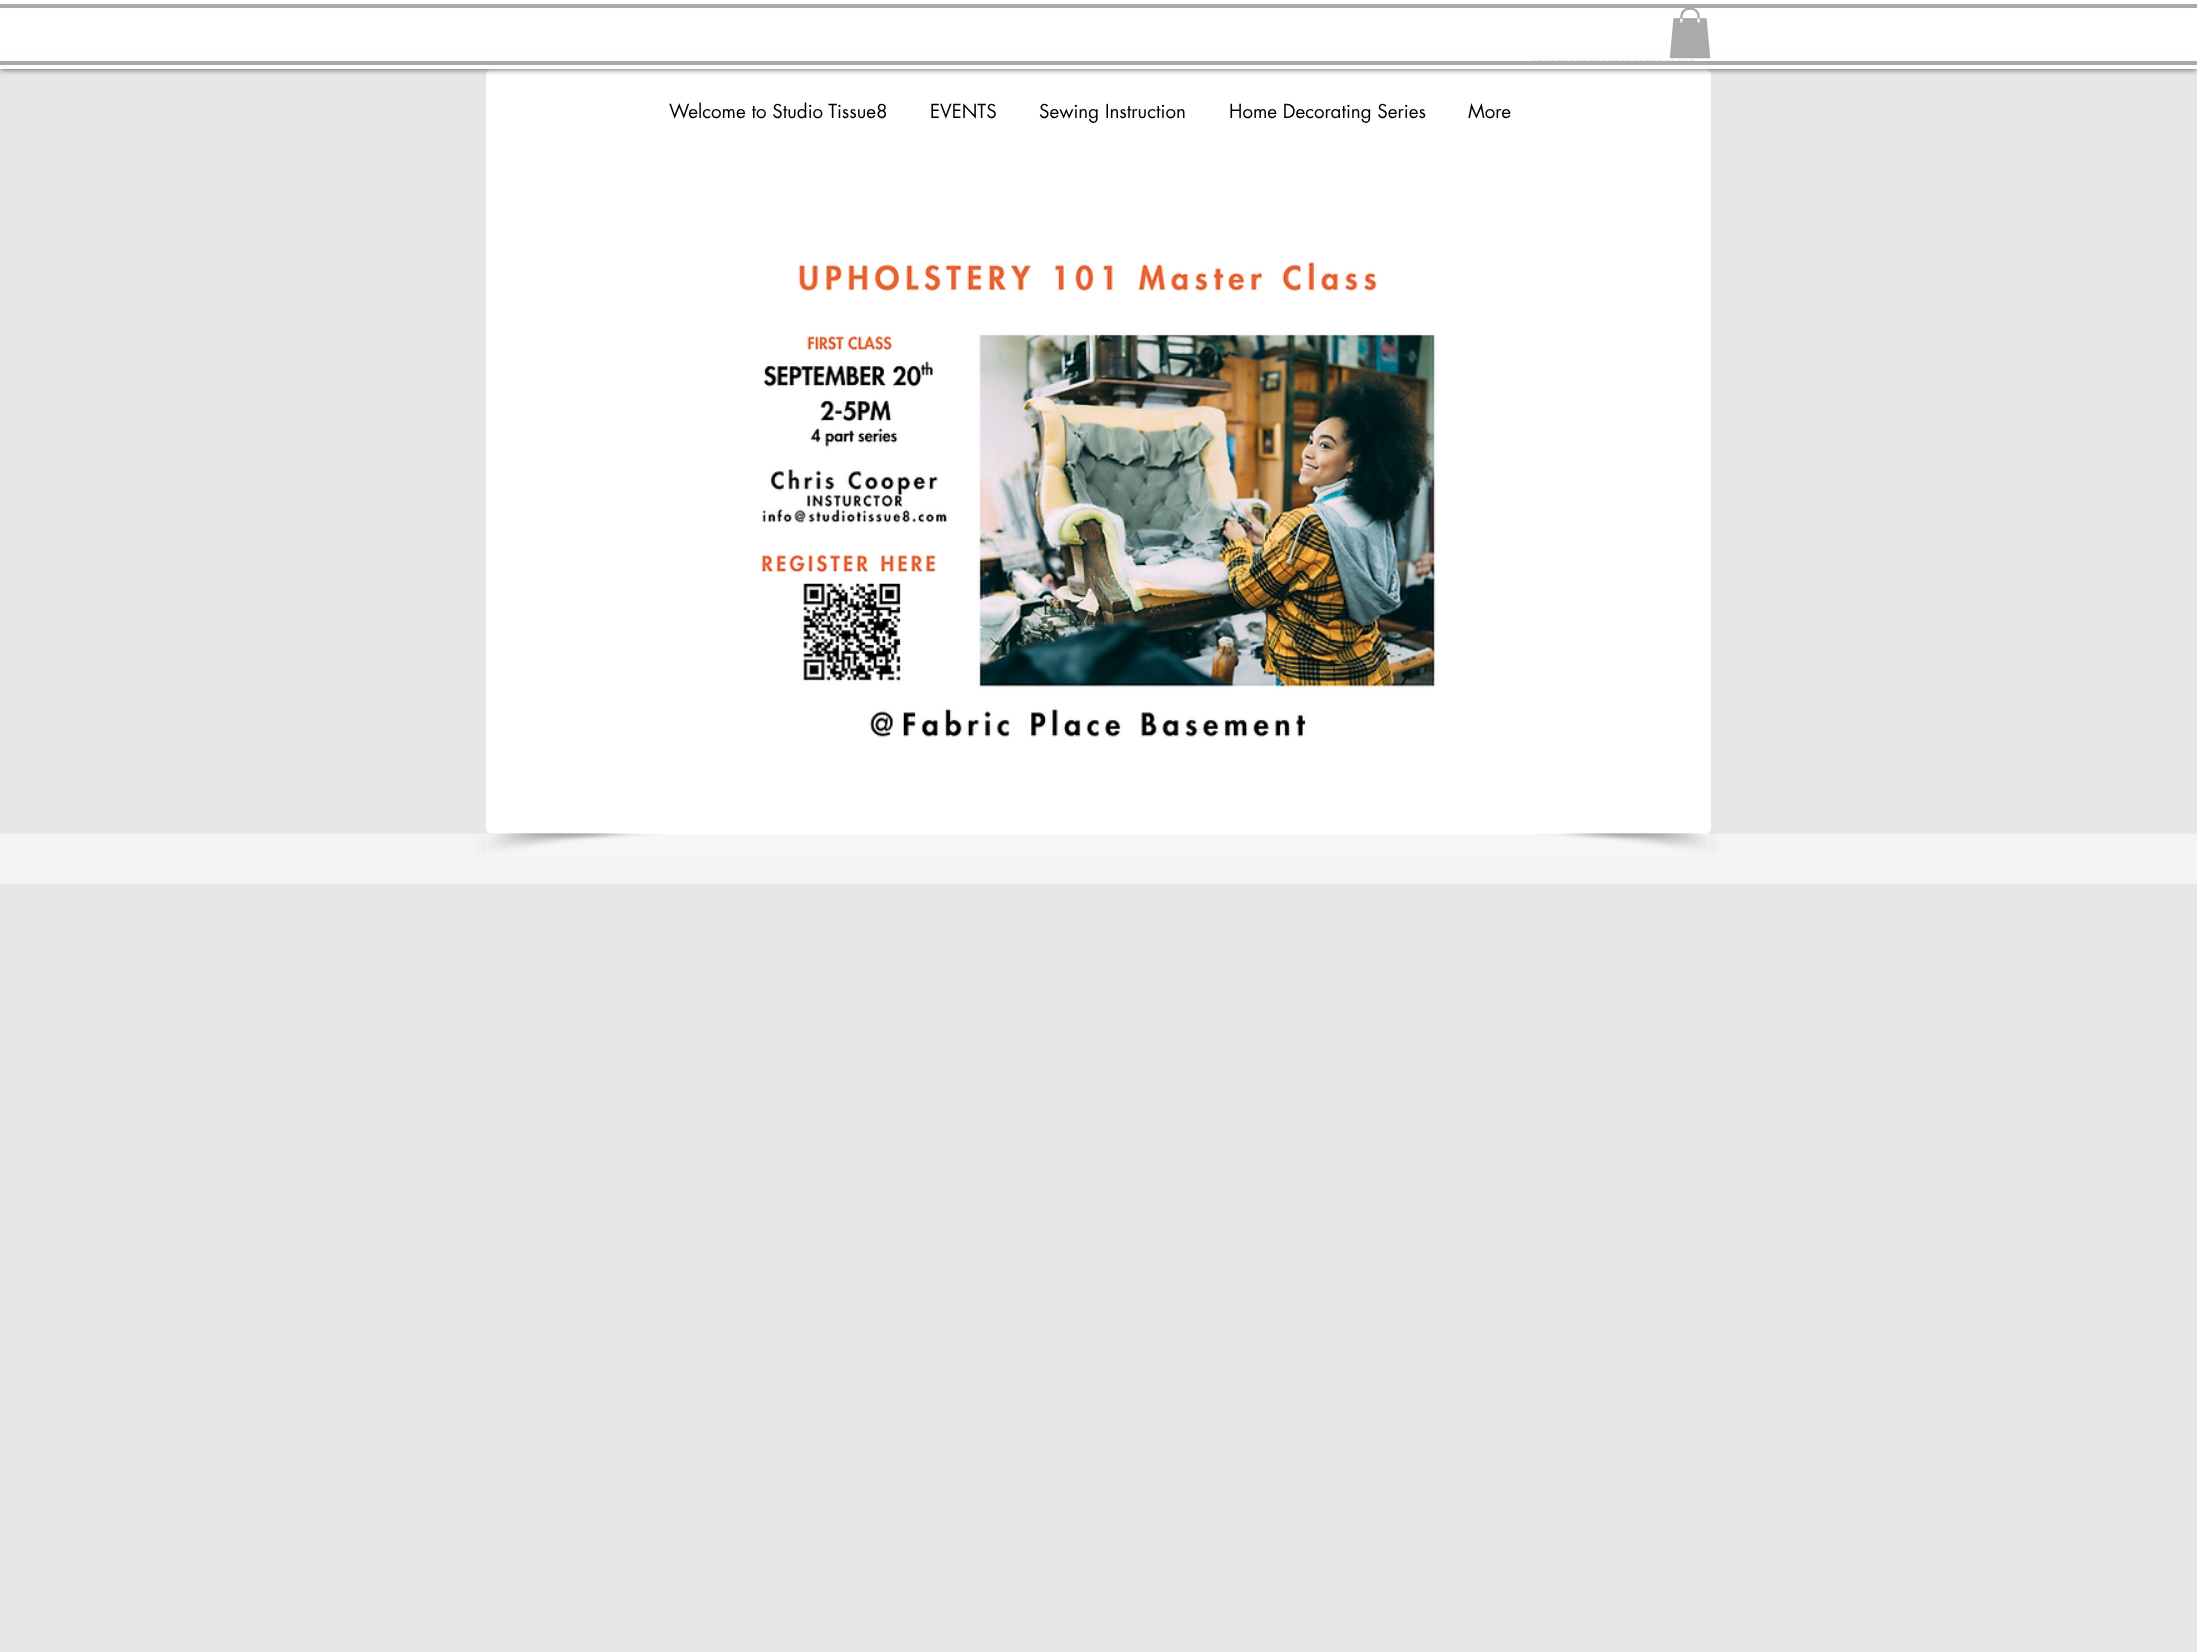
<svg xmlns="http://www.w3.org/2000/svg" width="2197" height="1652">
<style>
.a{font:18.75px futura;fill:#000}
</style>
<rect width="100%" height="100%" fill="#e8e6e6"/>
<rect fill="#fff" x="486" y="69" width="1225" height="765" rx="6"/>
<path fill="#000000b3" filter="blur(3px)" d="M0 0h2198v69H0z"/>
<path fill="#fff" d="M0 0h2197v69H0z"/>
<path fill="#aaa" d="M0 4h2197v4H0z"/>
<path fill="#aaa" d="M0 61h2197v4H0z"/>
<path fill="#fdfff4" d="M0 14h2197v1H0z"/>
<path fill="#fdfff4" d="M0 54h2197v1H0z"/>
<image href="1.png" x="1669" y="8" width="42" height="51"/>
<path fill="none" stroke="#e8e6e6" stroke-width="1.2" stroke-dasharray="3.75 2.55" d="M1532.5 60.5h161.5"/>
<path fill="#f5f4f4" d="M0 834h2197v50H0z"/>
<image href="2.png" x="476" y="833" width="186" height="22"/>
<image href="3.png" x="1536" y="833" width="186" height="23"/>
<image href="4.png" x="761" y="261" width="675" height="476"/>
<path fill="#ffffff3d" d="M486 834h1225v22H486z"/>
<text class="a" x="669" y="118">Welcome to Studio Tissue8</text>
<text class="a" x="930" y="118">EVENTS</text>
<text class="a" x="1039" y="118">Sewing Instruction</text>
<text class="a" x="1229" y="118">Home Decorating Series</text>
<text class="a" x="1468" y="118">More</text>
</svg>
